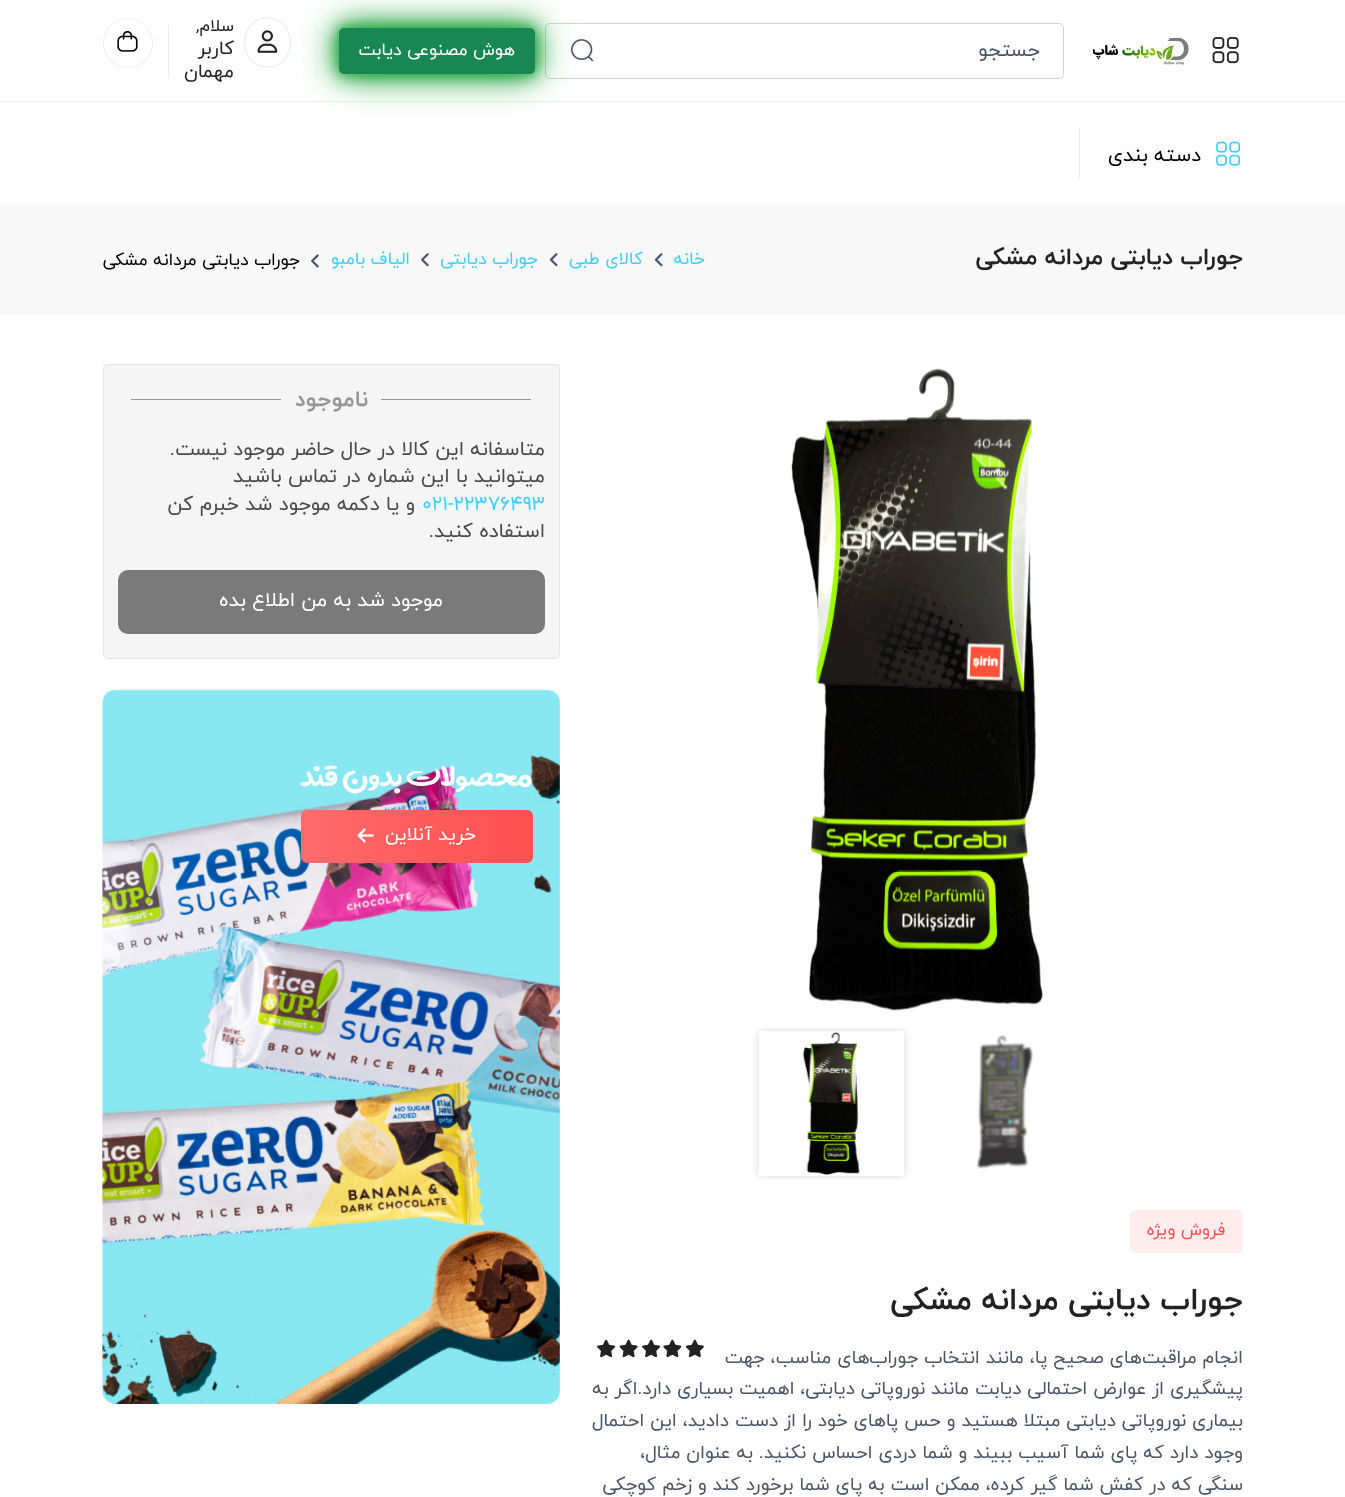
<svg xmlns="http://www.w3.org/2000/svg" width="1345" height="1497">
<style>
.a{font:20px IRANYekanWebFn;direction:rtl;fill:#4a5568}
.b{font:17.5px IRANYekanWebFn;direction:rtl;fill:#fff}
.c{font:17px IRANYekanWebFn;direction:rtl;fill:#222}
.d{font:19px IRANYekanWebFn;direction:rtl;fill:#222}
.e{font:20px IRANYekanWebFn;direction:rtl;fill:#000}
.f{font:bold 23.5px IRANYekanWebFn;direction:rtl;fill:#222}
.g{font:17.5px IRANYekanWebFn;direction:rtl;fill:#3dcfff}
.h{font:17.5px IRANYekanWebFn;direction:rtl;fill:#000}
.i{font:bold 22.5px IRANYekanWebFn;direction:rtl;fill:#969696}
.j{font:20px IRANYekanWebFn;direction:rtl;fill:#4a4a4a}
.k{font:20px IRANYekanWebFn;fill:#3dcfff}
.l{font:20px IRANYekanWebFn;direction:rtl;fill:#fff}
.m{font:41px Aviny;direction:rtl;fill:#fff}
.n{font:18.7px IRANYekanWebFn;direction:rtl;fill:#fff}
.o{font:17px IRANYekanWebFn;direction:rtl;fill:#ff4f4f}
.p{font:bold 31px IRANYekanWebFn;direction:rtl;fill:#222}
.q{font:18.7px IRANYekanWebFn;direction:rtl;fill:#4a5568}
</style>
<defs>
<linearGradient id="g1" gradientUnits="userSpaceOnUse" x1="301" y1="836" x2="533" y2="836"><stop offset="0" stop-color="#ff6b6b"/><stop offset="1" stop-color="#ff4f4f"/></linearGradient>
<clipPath id="clip1"><path d="M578 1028h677v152H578z"/></clipPath>
<clipPath id="clip2"><path d="M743 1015h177v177h-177zm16 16h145v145h-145z" clip-rule="evenodd"/></clipPath>
</defs>
<rect width="100%" height="100%" fill="#fff"/>
<path fill="#ececec" d="M0 101h1345v1H0z"/>
<image href="1.png" x="1212" y="37" width="27" height="27"/>
<image href="2.png" x="1093" y="38" width="96" height="27"/>
<rect fill="none" stroke="#d3d3d3" x="545.5" y="23.5" width="518" height="55" rx="4.5"/>
<image href="3.png" x="571" y="39" width="23" height="23"/>
<rect fill="#28a745" filter="blur(19px)" x="339" y="28" width="196" height="46" rx="5"/>
<rect fill="#28a745" filter="blur(12.5px)" x="339" y="28" width="196" height="46" rx="5"/>
<rect fill="#28a745" filter="blur(6px)" x="339" y="28" width="196" height="46" rx="5"/>
<rect fill="#198754" x="339" y="28" width="196" height="46" rx="5"/>
<path fill="#ececec" d="M316 25h1v53H316z"/>
<path fill="none" stroke="#ececec" stroke-width="1.2" d="M267.5 18c30.5 0 30.5 49 0 49c-30.5 0-30.5-49 0-49z"/>
<image href="4.png" x="257" y="30" width="21" height="23"/>
<path fill="#ececec" d="M168 25h1v53H168z"/>
<circle fill="none" stroke="#ececec" cx="128" cy="43" r="24.5"/>
<image href="5.png" x="117" y="31" width="21" height="21"/>
<image href="6.png" x="1216" y="141" width="25" height="25"/>
<path fill="#ececec" d="M1079 128h1v51H1079z"/>
<path fill="#f8f8f8" d="M0 204h1345v111H0z"/>
<image href="7.png" x="654" y="253" width="9" height="14"/>
<image href="7.png" x="549" y="253" width="9" height="14"/>
<image href="8.png" x="421" y="253" width="8" height="14"/>
<image href="9.png" x="311" y="254" width="8" height="14"/>
<path fill="#f8f8f8" d="M103 364h457v295H103z"/>
<rect fill="#f5f5f5" stroke="#e4e4e4" x="103.5" y="364.5" width="456" height="294" rx="5.5"/>
<path fill="#969696" d="M381 399h150v1H381z"/>
<path fill="#969696" d="M131 399h150v1H131z"/>
<rect fill="#7a7a7a" x="118" y="570" width="427" height="64" rx="10"/>
<image href="10.png" x="102" y="689" width="458" height="715"/>
<rect fill="url(#g1)" x="301" y="810" width="232" height="53" rx="6"/>
<image href="11.png" x="357" y="828" width="17" height="15"/>
<image href="12.png" x="791" y="368" width="252" height="643"/>
<image href="13.png" x="976" y="1034" width="58" height="135"/>
<g clip-path="url(#clip1)">
<g clip-path="url(#clip2)">
<path fill="#22222229" filter="blur(5px)" d="M759 1031h145v145H759z"/>
</g>
</g>
<image href="14.png" x="802" y="1032" width="58" height="143"/>
<rect fill="#ffeded" x="1130" y="1210" width="113" height="43" rx="6"/>
<image href="15.png" x="685" y="1339" width="19" height="19"/>
<image href="16.png" x="663" y="1339" width="19" height="19"/>
<image href="17.png" x="642" y="1339" width="19" height="19"/>
<image href="18.png" x="619" y="1339" width="19" height="19"/>
<image href="17.png" x="597" y="1339" width="19" height="19"/>
<text class="a" x="1040" y="56">جستجو</text>
<text class="b" x="515" y="55">هوش مصنوعی دیابت</text>
<text class="c" x="234" y="31">سلام,</text>
<text class="d" x="234" y="54">کاربر</text>
<text class="d" x="234" y="77">مهمان</text>
<text class="e" x="1201" y="161">دسته بندی</text>
<text class="f" x="1243" y="264">جوراب دیابتی مردانه مشکی</text>
<text class="g" x="705" y="264">خانه</text>
<text class="g" x="643" y="264">کالای طبی</text>
<text class="g" x="538" y="264">جوراب دیابتی</text>
<text class="g" x="410" y="264">الیاف بامبو</text>
<text class="h" x="300" y="265">جوراب دیابتی مردانه مشکی</text>
<text class="i" x="368" y="406">ناموجود</text>
<text class="j" x="545" y="455">متاسفانه این کالا در حال حاضر موجود نیست.</text>
<text class="j" x="545" y="482">میتوانید با این شماره در تماس باشید</text>
<text class="k" x="422" y="510">021-22376493</text>
<text class="j" x="415" y="510">و یا دکمه موجود شد خبرم کن</text>
<text class="j" x="545" y="537">استفاده کنید.</text>
<text class="l" x="443" y="606">موجود شد به من اطلاع بده</text>
<text class="m" x="532" y="786">محصولات بدون قند</text>
<text class="n" x="476" y="840">خرید آنلاین</text>
<text class="o" x="1225" y="1235">فروش ویژه</text>
<text class="p" x="1243" y="1309">جوراب دیابتی مردانه مشکی</text>
<text class="q" x="1243" y="1363">انجام مراقبت‌های صحیح پا، مانند انتخاب جوراب‌های مناسب، جهت</text>
<text class="q" x="1243" y="1394">پیشگیری از عوارض احتمالی دیابت مانند نوروپاتی دیابتی، اهمیت بسیاری دارد.اگر به</text>
<text class="q" x="1243" y="1426">بیماری نوروپاتی دیابتی مبتلا هستید و حس پاهای خود را از دست دادید، این احتمال</text>
<text class="q" x="1243" y="1458">وجود دارد که پای شما آسیب ببیند و شما دردی احساس نکنید. به عنوان مثال،</text>
<text class="q" x="1243" y="1490">سنگی که در کفش شما گیر ‌کرده، ممکن است به پای شما برخورد کند و زخم کوچکی</text>
</svg>
